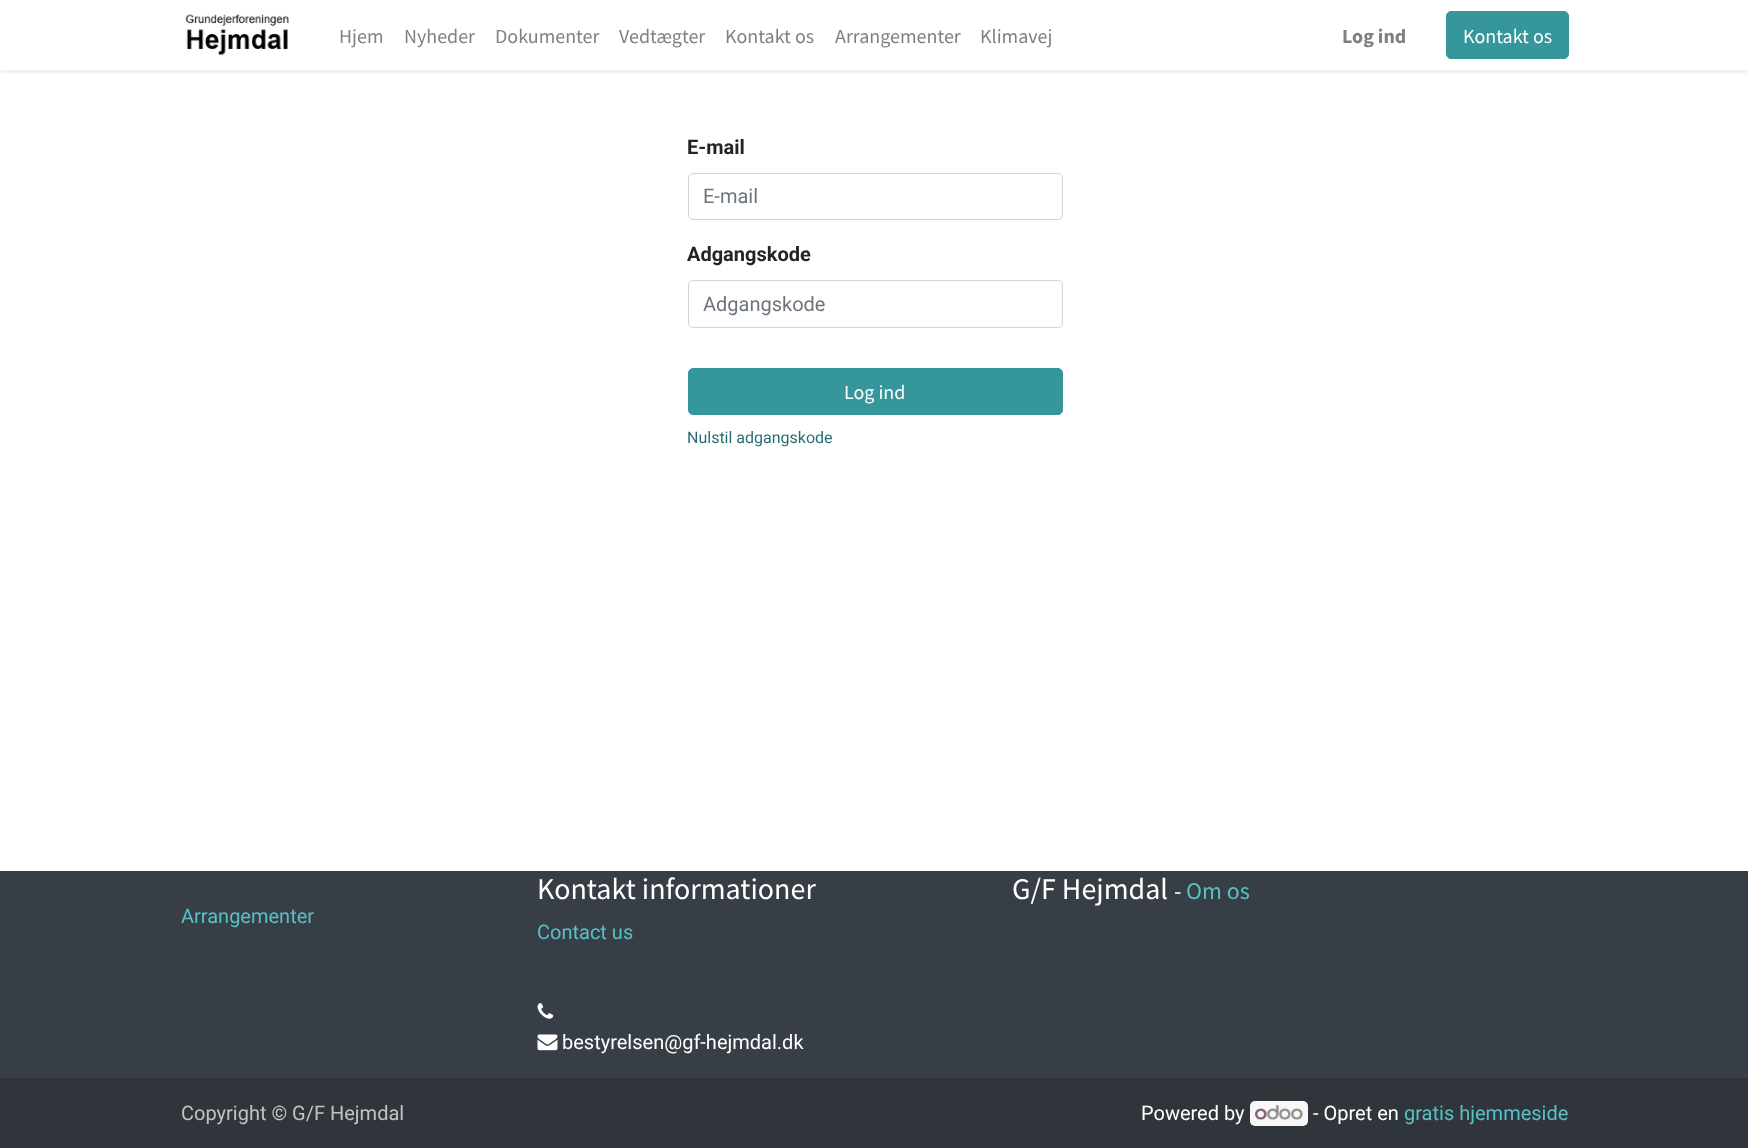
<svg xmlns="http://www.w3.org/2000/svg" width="1748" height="1148">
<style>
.a{font:20px Source Sans Pro;fill:#808080}
.b{font:bold 20px Source Sans Pro;fill:#808080}
.c{font:20px Source Sans Pro;fill:#fff}
.d{font:bold 20px Roboto;fill:#212529}
.e{font:20px Roboto;fill:#6c757d}
.f{font:16px Roboto;fill:#276e72}
.g{font:30px Source Sans Pro;fill:#fff}
.h{font:20px Roboto;fill:#57c1c6}
.i{font:20px Roboto;fill:#fff}
.j{font:24px Source Sans Pro;fill:#fff}
.k{font:24px Source Sans Pro;fill:#57c1c6}
.l{font:20px Roboto;fill:#c1c2c4}
</style>
<defs>
<clipPath id="clip1"><path d="M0 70h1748v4H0z"/></clipPath>
</defs>
<rect width="100%" height="100%" fill="#fff"/>
<g clip-path="url(#clip1)">
<path fill="#00000012" filter="blur(2.5px)" d="M0 3h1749v70H0z"/>
</g>
<image href="1.png" x="184" y="14" width="105" height="42"/>
<rect fill="#35979c" stroke="#35979c" x="1446.5" y="11.5" width="122" height="47" rx="4.5"/>
<rect fill="none" stroke="#ced4da" x="688.5" y="173.5" width="374" height="46" rx="4.5"/>
<rect fill="none" stroke="#ced4da" x="688.5" y="280.5" width="374" height="47" rx="4.5"/>
<rect fill="#35979c" stroke="#35979c" x="688.5" y="368.5" width="374" height="46" rx="4.5"/>
<path fill="#383e45" d="M0 871h1748v207H0z"/>
<image href="2.png" x="537" y="1003" width="17" height="16"/>
<image href="3.png" x="537" y="1034" width="21" height="17"/>
<path fill="#30353b" d="M0 1078h1748v70H0z"/>
<rect fill="#f7f7f7" x="1250" y="1101" width="58" height="25" rx="5"/>
<image href="4.png" x="1255" y="1105" width="48" height="15"/>
<text class="a" x="339" y="43">Hjem</text>
<text class="a" x="404" y="43">Nyheder</text>
<text class="a" x="495" y="43">Dokumenter</text>
<text class="a" x="619" y="43">Vedtægter</text>
<text class="a" x="725" y="43">Kontakt os</text>
<text class="a" x="835" y="43">Arrangementer</text>
<text class="a" x="980" y="43">Klimavej</text>
<text class="b" x="1342" y="43">Log ind</text>
<text class="c" x="1463" y="43">Kontakt os</text>
<text class="d" x="687" y="154">E-mail</text>
<text class="e" x="703" y="203">E-mail</text>
<text class="d" x="687" y="261">Adgangskode</text>
<text class="e" x="703" y="311">Adgangskode</text>
<text class="c" x="844" y="399">Log ind</text>
<text class="f" x="687" y="443">Nulstil adgangskode</text>
<text class="g" x="537" y="899">Kontakt informationer</text>
<text class="h" x="537" y="939">Contact us</text>
<text class="i" x="562" y="1049">bestyrelsen@gf-hejmdal.dk</text>
<text class="g" x="1012" y="899">G/F Hejmdal</text>
<text class="j" x="1174" y="899">-</text>
<text class="k" x="1186" y="899">Om os</text>
<text class="h" x="181" y="923">Arrangementer</text>
<text class="l" x="181" y="1120">Copyright © G/F Hejmdal</text>
<text class="i" x="1141" y="1120">Powered by</text>
<text class="i" x="1313" y="1120">- Opret en</text>
<text class="h" x="1404" y="1120">gratis hjemmeside</text>
</svg>
